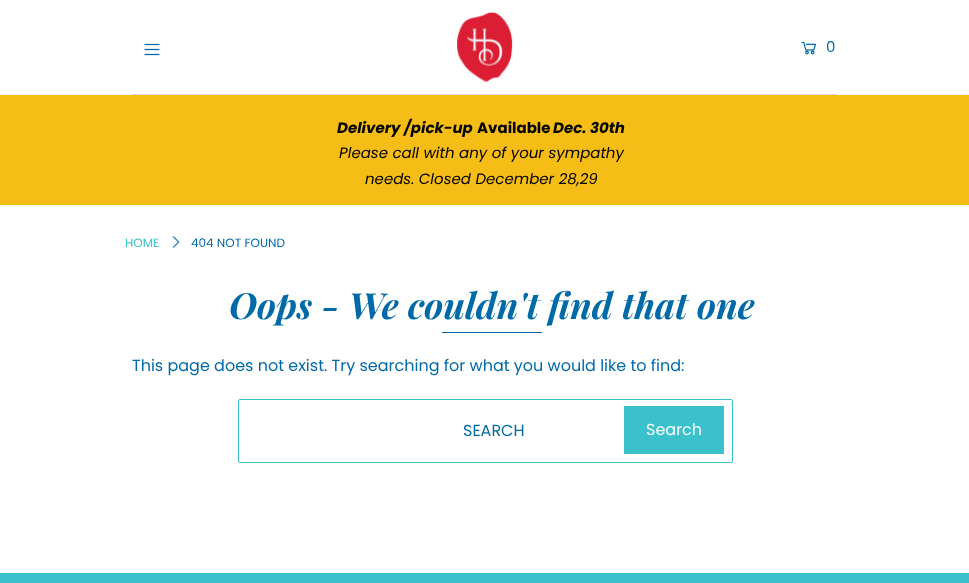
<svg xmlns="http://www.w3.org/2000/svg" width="969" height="583">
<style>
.a{font:15px Poppins;fill:#006aa9}
.b{font:italic bold 15px Poppins;fill:#000}
.c{font:bold 15px Poppins;fill:#000}
.d{font:italic 15px Poppins;fill:#000}
.e{font:12px Poppins;fill:#3ac1cc}
.f{font:12px Poppins;fill:#006aa9}
.g{font:italic bold 36px Playfair Display;fill:#006aa9}
.h{font:16px Poppins;fill:#006aa9}
.i{font:16px Poppins;fill:#fff}
</style>
<rect width="100%" height="100%" fill="#fff"/>
<path fill="#dbdbdb" d="M132 94h705v1H132z"/>
<image href="1.png" x="144" y="43" width="16" height="13"/>
<image href="2.png" x="457" y="12" width="56" height="71"/>
<image href="3.png" x="801" y="41" width="16" height="14"/>
<path fill="#f6bd17" d="M0 95h969v110H0z"/>
<image href="4.png" x="172" y="236" width="8" height="12"/>
<path fill="#006aa9" d="M442 332h100v1H442z"/>
<rect fill="none" stroke="#3ac1cc" x="238.5" y="399.5" width="494" height="63" rx="1.5"/>
<path fill="#3ac1cc" d="M624 406h100v48H624z"/>
<path fill="#3ac1cc" d="M0 573h969v10H0z"/>
<text class="a" x="826" y="52">0</text>
<text class="b" x="337" y="133">Delivery /pick-up</text>
<text class="c" x="477" y="133">Available</text>
<text class="b" x="553" y="133">Dec. 30th</text>
<text class="d" x="339" y="158">Please call with any of your sympathy</text>
<text class="d" x="365" y="184">needs. Closed December 28,29</text>
<text class="e" x="125" y="247">HOME</text>
<text class="f" x="191" y="247">404 NOT FOUND</text>
<text class="g" x="229" y="319">Oops - We couldn't find that one</text>
<text class="h" x="132" y="371">This page does not exist. Try searching for what you would like to find:</text>
<text class="h" x="463" y="436">SEARCH</text>
<text class="i" x="646" y="435">Search</text>
</svg>
